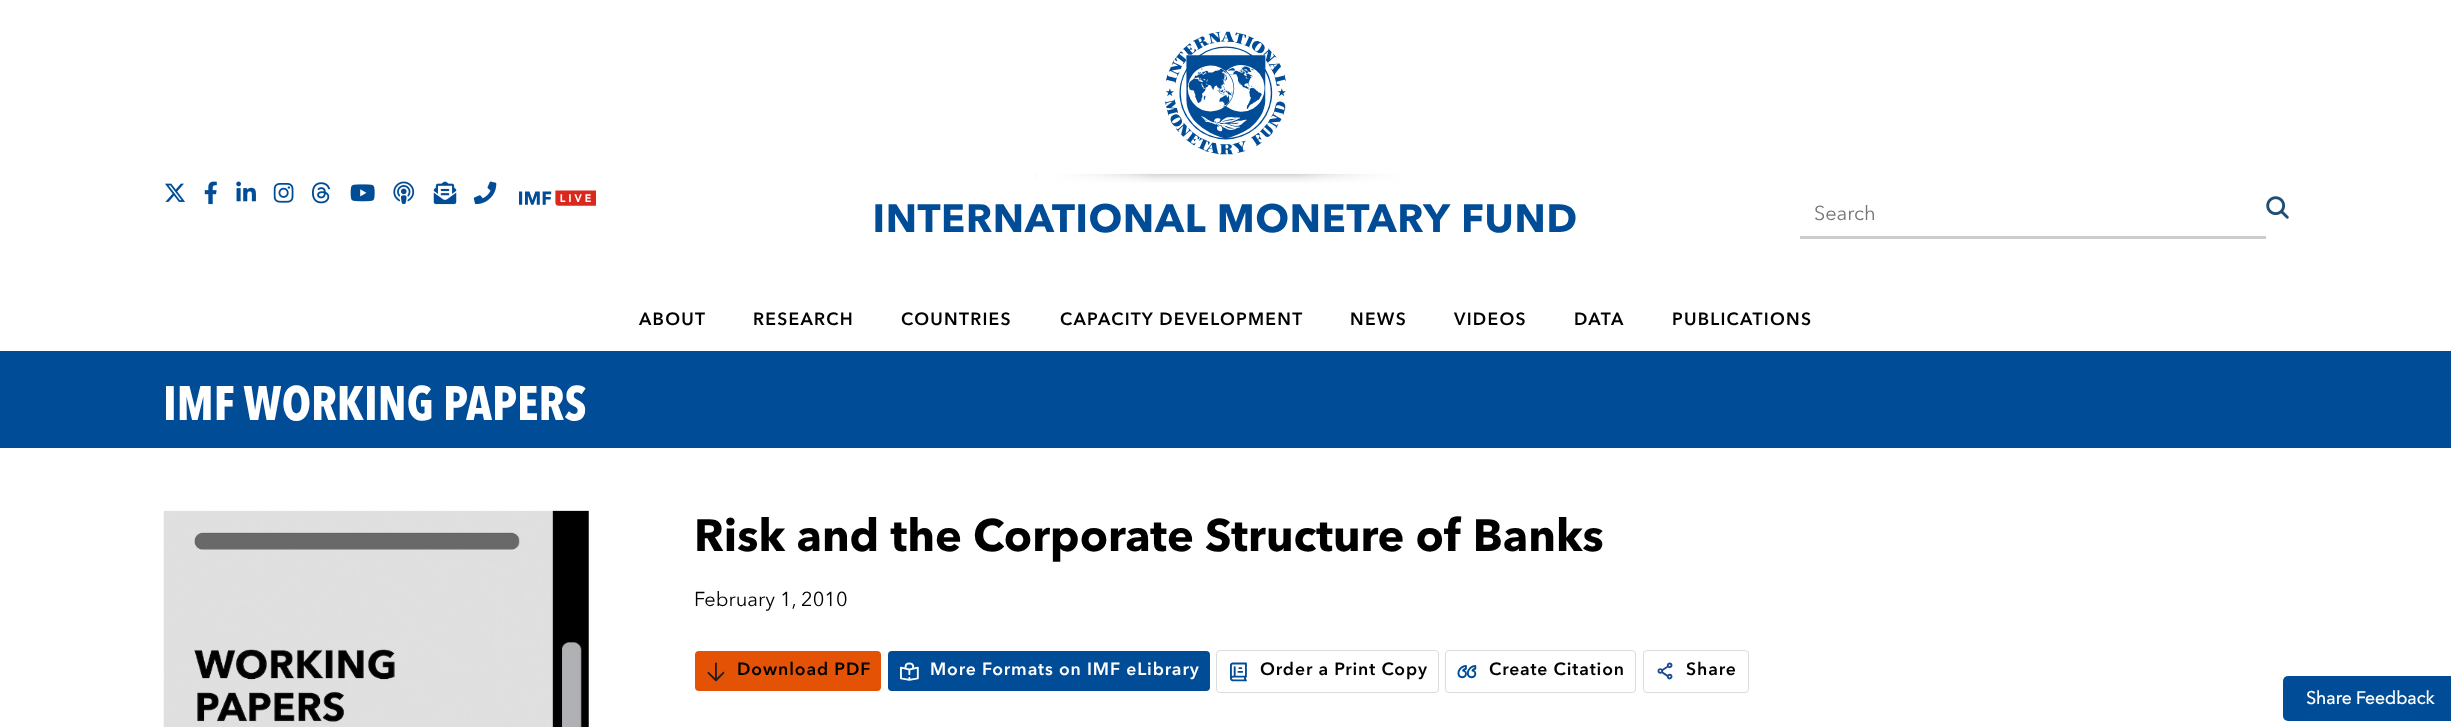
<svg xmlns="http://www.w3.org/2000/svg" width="2451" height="727">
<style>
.a{font:20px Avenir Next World;fill:#757575}
.b{font:600 17.5px Avenir Next World;letter-spacing:1.25px;fill:#000}
.c{font:bold 47.9px 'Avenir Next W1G';fill:#fff}
.d{font:bold 45px Avenir Next World;fill:#000}
.e{font:20px Avenir Next World;fill:#000}
.f{font:600 17.6px Avenir Next World;letter-spacing:0.9px;fill:#000}
.g{font:600 17.6px Avenir Next World;letter-spacing:0.9px;fill:#fff}
.h{font:bold 17.5px 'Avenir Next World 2';fill:#fff}
</style>
<rect width="100%" height="100%" fill="#fff"/>
<image href="1.png" x="165" y="183" width="20" height="19"/>
<image href="2.png" x="204" y="181" width="13" height="24"/>
<image href="3.png" x="236" y="181" width="20" height="21"/>
<image href="4.png" x="273" y="183" width="21" height="20"/>
<image href="5.png" x="311" y="182" width="20" height="22"/>
<image href="6.png" x="350" y="184" width="25" height="18"/>
<image href="7.png" x="393" y="181" width="22" height="24"/>
<image href="8.png" x="433" y="181" width="24" height="24"/>
<image href="9.png" x="473" y="181" width="24" height="24"/>
<image href="10.png" x="519" y="190" width="77" height="16"/>
<image href="11.png" x="1035" y="31" width="384" height="152"/>
<image href="12.png" x="875" y="203" width="701" height="30"/>
<path fill="#ccc" d="M1800 236h466v3H1800z"/>
<image href="13.png" x="2266" y="196" width="23" height="23"/>
<path fill="#004c97" d="M0 351h2451v97H0z"/>
<image href="14.png" x="163" y="510" width="426" height="217"/>
<rect fill="#e35205" x="695" y="651" width="186" height="40" rx="4"/>
<image href="15.png" x="707" y="662" width="18" height="20"/>
<rect fill="#004c97" x="888" y="651" width="322" height="40" rx="4"/>
<image href="16.png" x="900" y="662" width="19" height="19"/>
<rect fill="none" stroke="#dadce0" x="1216.5" y="650.5" width="222" height="42" rx="3.5"/>
<image href="17.png" x="1230" y="662" width="17" height="20"/>
<rect fill="none" stroke="#dadce0" x="1445.5" y="650.5" width="190" height="42" rx="3.5"/>
<image href="18.png" x="1457" y="665" width="20" height="14"/>
<rect fill="none" stroke="#dadce0" x="1643.5" y="650.5" width="105" height="42" rx="3.5"/>
<image href="19.png" x="1657" y="662" width="16" height="18"/>
<rect fill="#004c97" x="2283" y="676" width="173" height="45" rx="5"/>
<text class="a" x="1814" y="220">Search</text>
<text class="b" x="639" y="325">ABOUT</text>
<text class="b" x="753" y="325">RESEARCH</text>
<text class="b" x="901" y="325">COUNTRIES</text>
<text class="b" x="1060" y="325">CAPACITY DEVELOPMENT</text>
<text class="b" x="1350" y="325">NEWS</text>
<text class="b" x="1454" y="325">VIDEOS</text>
<text class="b" x="1574" y="325">DATA</text>
<text class="b" x="1672" y="325">PUBLICATIONS</text>
<text class="c" x="163" y="420">IMF WORKING PAPERS</text>
<text class="d" x="694" y="551">Risk and the Corporate Structure of Banks</text>
<text class="e" x="694" y="606">February 1, 2010</text>
<text class="f" x="737" y="675">Download PDF</text>
<text class="g" x="930" y="675">More Formats on IMF eLibrary</text>
<text class="f" x="1260" y="675">Order a Print Copy</text>
<text class="f" x="1489" y="675">Create Citation</text>
<text class="f" x="1686" y="675">Share</text>
<text class="h" x="2306" y="704">Share Feedback</text>
</svg>
